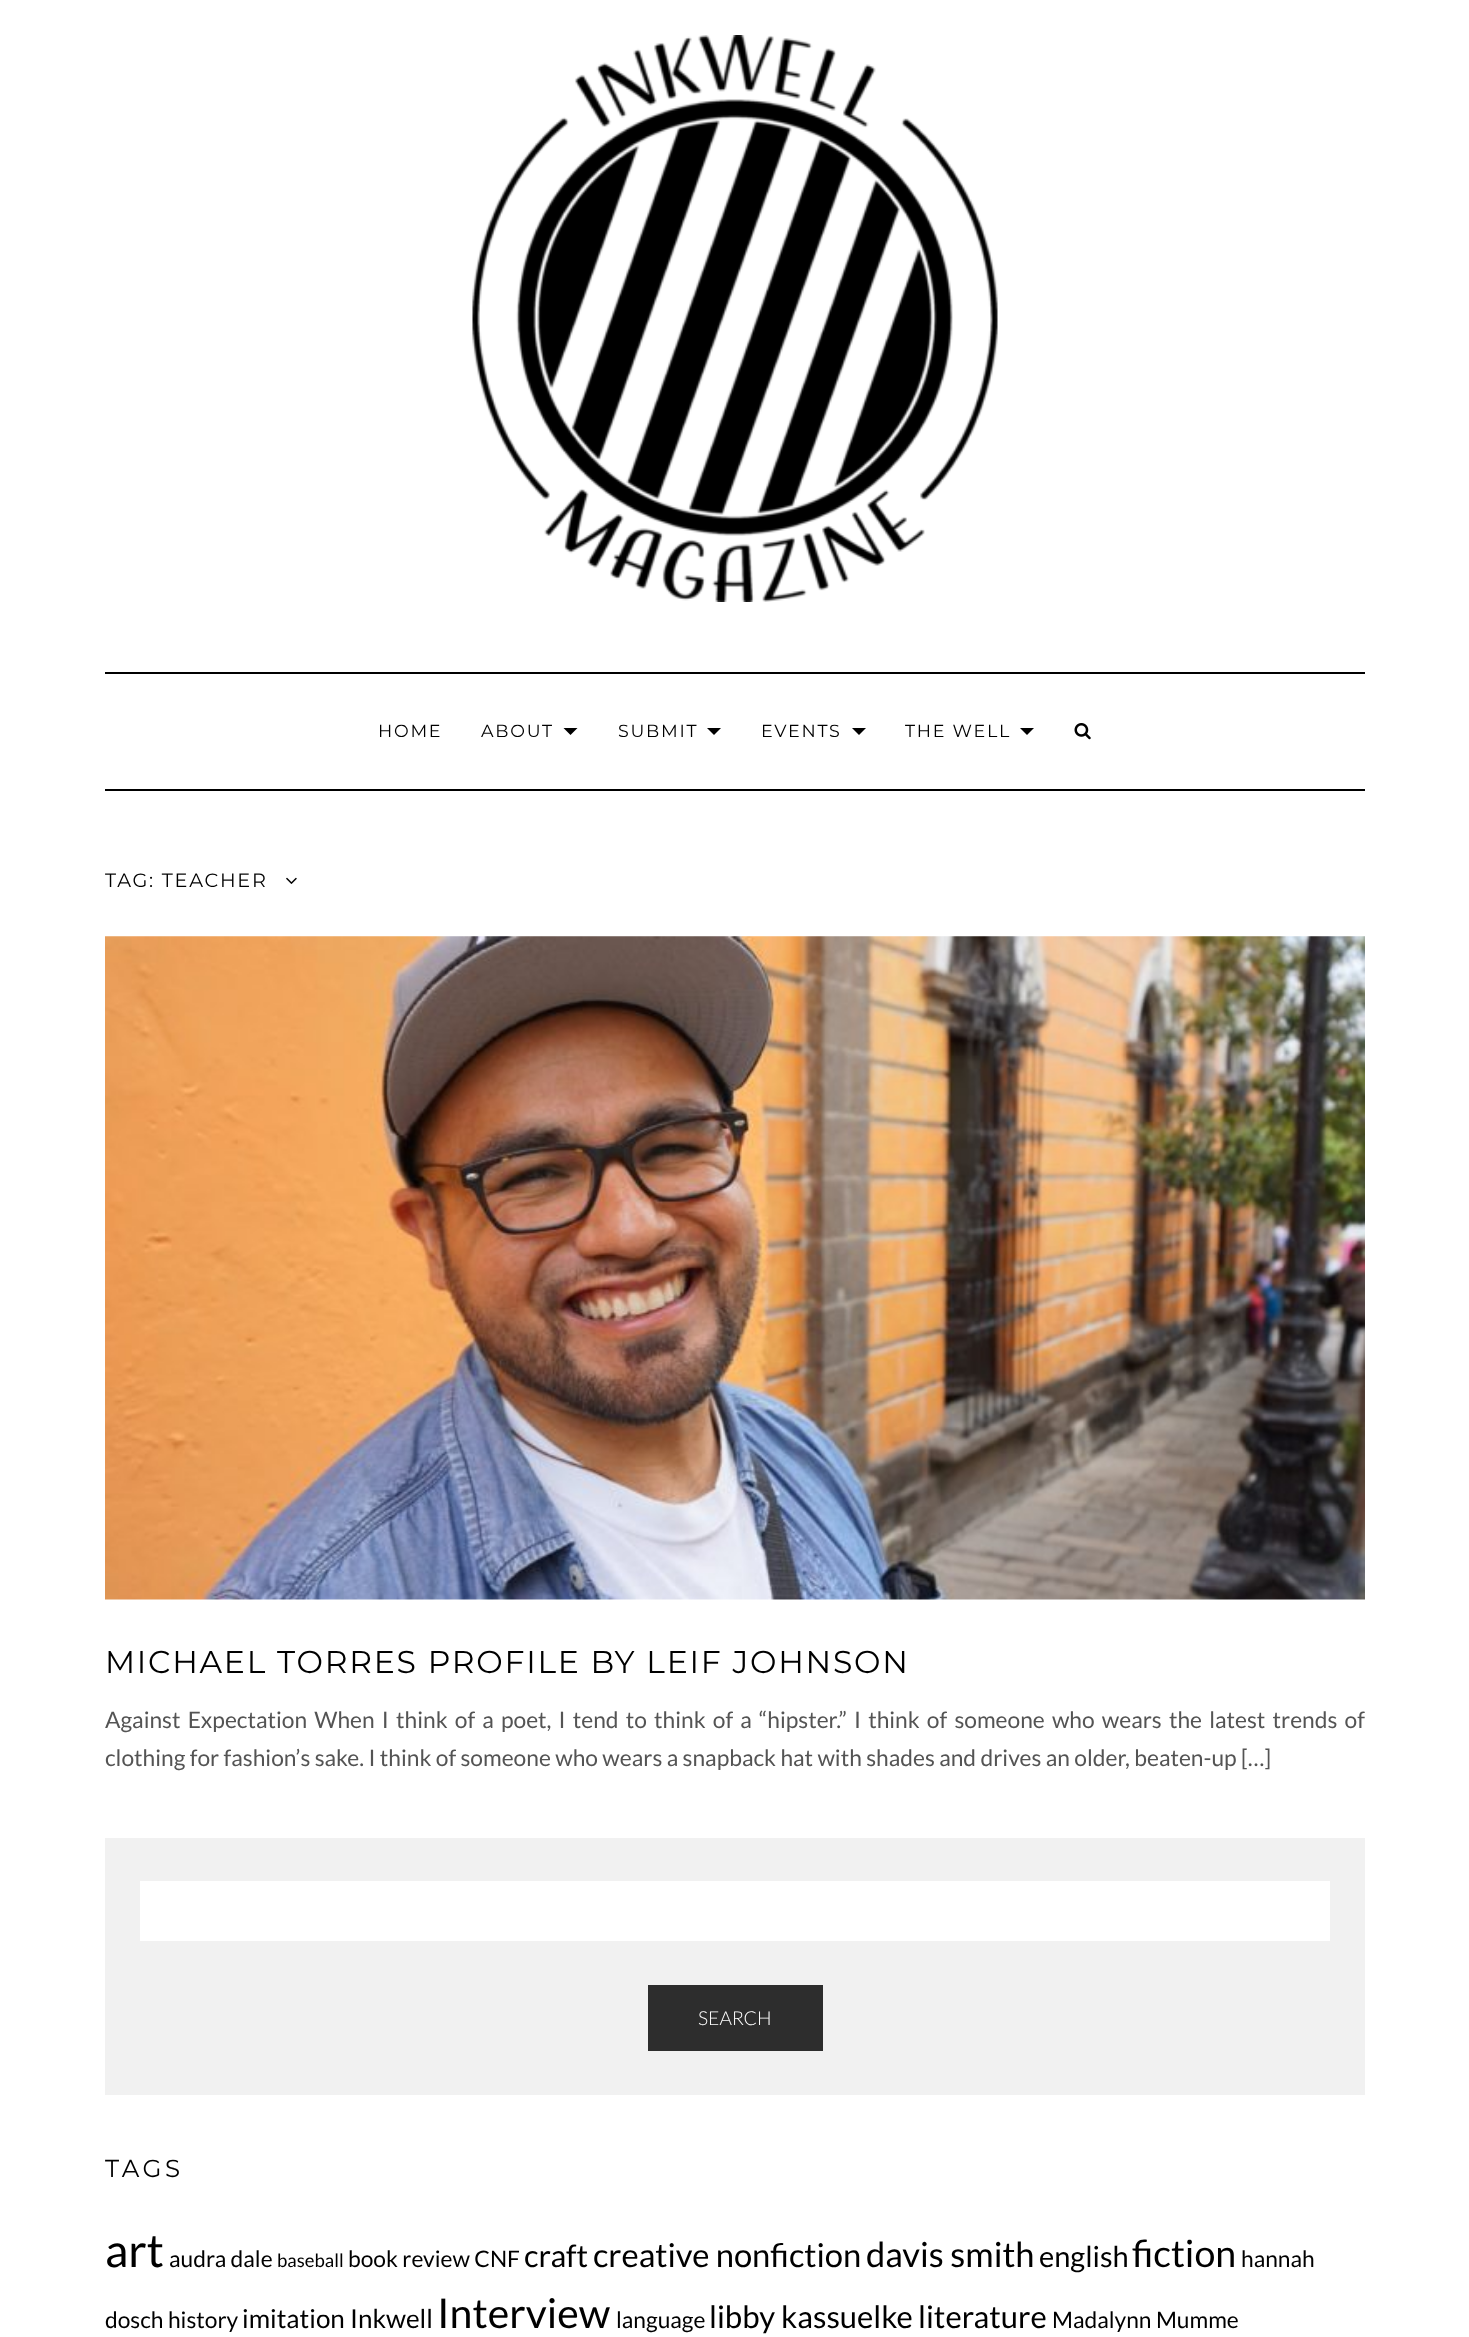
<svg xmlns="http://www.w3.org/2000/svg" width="1469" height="2337">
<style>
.a{font:17.5px Montserrat;letter-spacing:1.75px;fill:#000}
.b{font:19.25px Montserrat;letter-spacing:1.75px;fill:#000}
.c{font:31.5px Montserrat;letter-spacing:1.75px;fill:#000}
.d{font:22.75px Lato;fill:#545454}
.e{font:300 19.25px Lato;fill:#fff}
.f{font:24.5px Montserrat;letter-spacing:3.5px;fill:#000}
.g{font:46px Lato;fill:#000}
.h{font:22.75px Lato;fill:#000}
.i{font:18.5px Lato;fill:#000}
.j{font:31px Lato;fill:#000}
.k{font:32.75px Lato;fill:#000}
.l{font:34.5px Lato;fill:#000}
.m{font:29px Lato;fill:#000}
.n{font:37.5px Lato;fill:#000}
.o{font:26px Lato;fill:#000}
.p{font:41px Lato;fill:#000}
</style>
<rect width="100%" height="100%" fill="#fff"/>
<image href="1.png" x="472" y="35" width="526" height="567"/>
<path fill="#000" d="M105 672h1260v2H105z"/>
<path fill="#000" d="M105 789h1260v2H105z"/>
<path fill="#000" d="M563.5 728h14l-7 7z"/>
<path fill="#000" d="M707 728h14l-7 7z"/>
<path fill="#000" d="M852 728h14l-7 7z"/>
<path fill="#000" d="M1020 728h14l-7 7z"/>
<image href="2.png" x="1074" y="723" width="17" height="17"/>
<image href="3.png" x="286" y="877" width="11" height="7"/>
<image href="4.png" x="105" y="936" width="1260" height="664"/>
<path fill="#f1f1f1" d="M105 1838h1260v257H105z"/>
<path fill="#fff" d="M140 1881h1190v60H140z"/>
<path fill="#2d2d2d" d="M648 1985h175v66H648z"/>
<text class="a" x="378" y="737">HOME</text>
<text class="a" x="481" y="737">ABOUT</text>
<text class="a" x="618" y="737">SUBMIT</text>
<text class="a" x="761" y="737">EVENTS</text>
<text class="a" x="905" y="737">THE WELL</text>
<text class="b" x="105" y="887">TAG: TEACHER</text>
<text class="c" x="105" y="1673">MICHAEL TORRES PROFILE BY LEIF JOHNSON</text>
<text class="d" x="105" y="1728" word-spacing="2.8">Against Expectation When I think of a poet, I tend to think of a “hipster.” I think of someone who wears the latest trends of</text>
<text class="d" x="105" y="1766">clothing for fashion’s sake. I think of someone who wears a snapback hat with shades and drives an older, beaten-up […]</text>
<text class="e" x="698" y="2025">SEARCH</text>
<text class="f" x="105" y="2177">TAGS</text>
<text class="g" x="105" y="2267">art</text>
<text class="h" x="169" y="2267">audra dale</text>
<text class="i" x="277" y="2267">baseball</text>
<text class="h" x="348" y="2267">book review CNF</text>
<text class="j" x="524" y="2267">craft</text>
<text class="k" x="593" y="2267">creative nonfiction</text>
<text class="l" x="866" y="2267">davis smith</text>
<text class="m" x="1039" y="2267">english</text>
<text class="n" x="1132" y="2267">fiction</text>
<text class="h" x="1241" y="2267">hannah</text>
<text class="h" x="105" y="2328">dosch history</text>
<text class="o" x="242" y="2328">imitation</text>
<text class="o" x="350" y="2328">Inkwell</text>
<text class="p" x="437" y="2328">Interview</text>
<text class="h" x="616" y="2328">language</text>
<text class="j" x="709" y="2328">libby kassuelke</text>
<text class="j" x="918" y="2328">literature</text>
<text class="h" x="1052" y="2328">Madalynn Mumme</text>
</svg>
